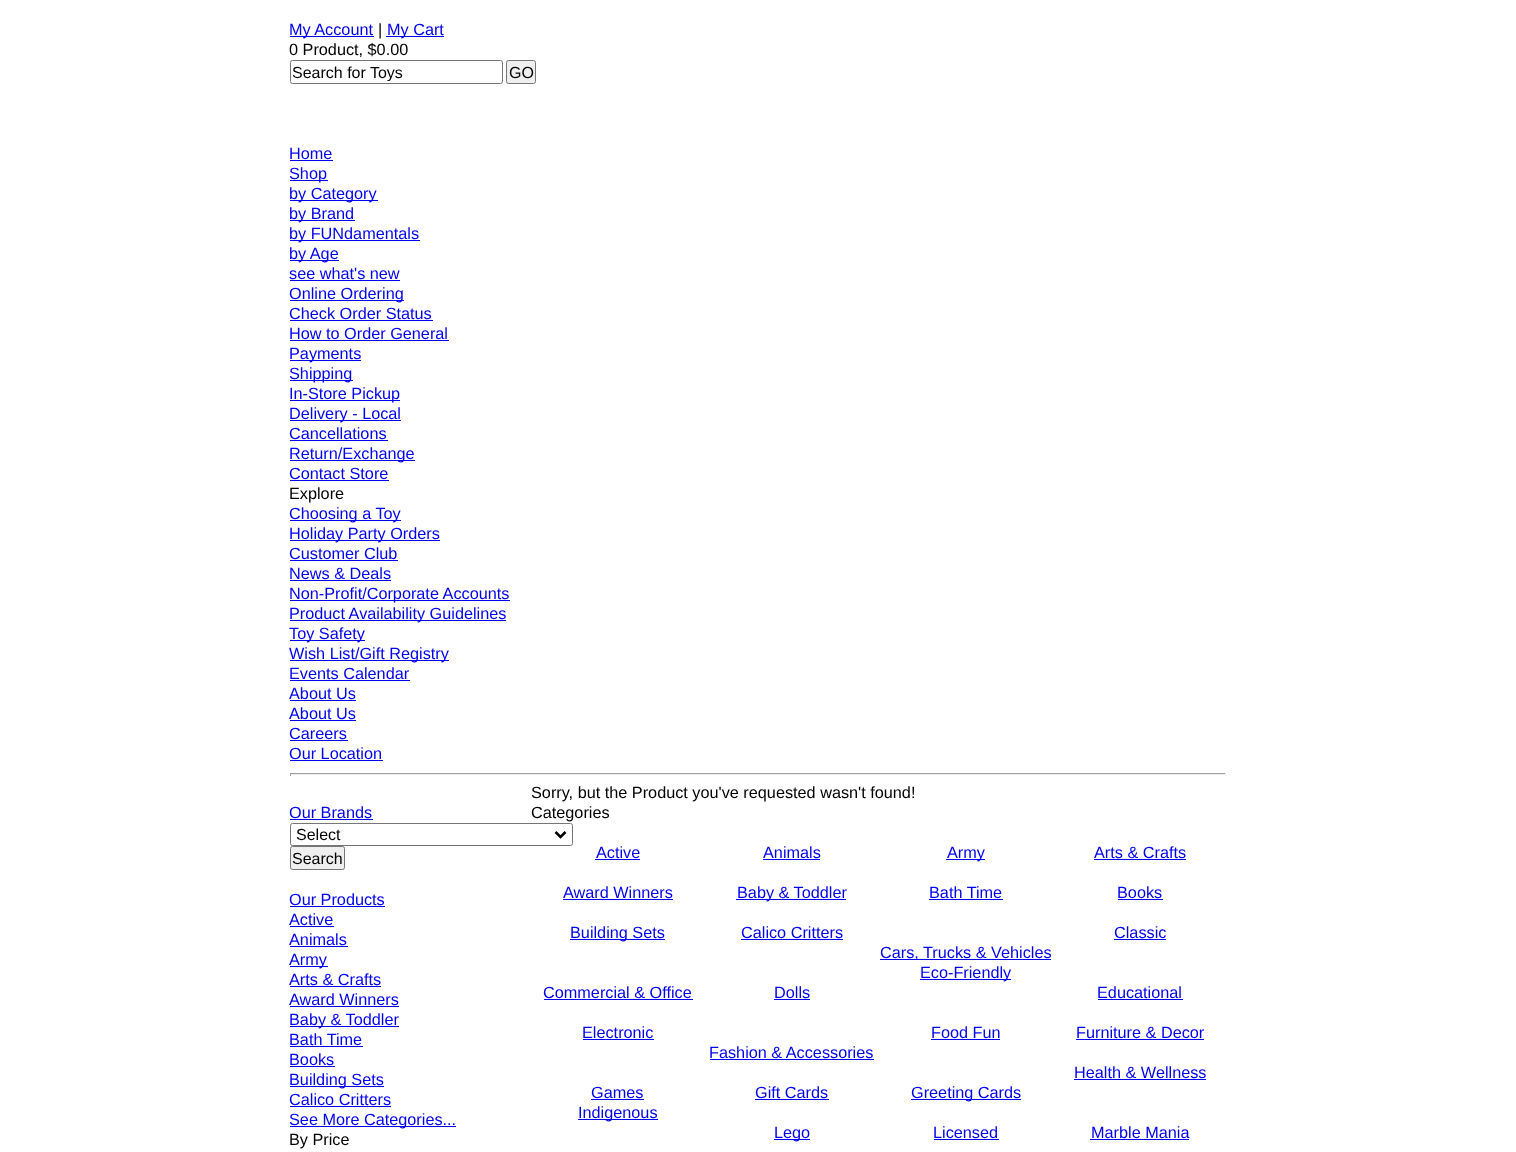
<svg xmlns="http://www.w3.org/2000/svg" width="1516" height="1152">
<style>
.a{font:16.25px Liberation Sans;fill:#00e}
.b{font:16.25px Liberation Sans;fill:#000}
.c{font:16px Liberation Sans;fill:#000}
</style>
<defs>
<clipPath id="clip1"><path d="M293 63h207v18H293z"/></clipPath>
</defs>
<rect width="100%" height="100%" fill="#fff"/>
<path fill="#00e" d="M290 36h84v1H290z"/>
<path fill="#00e" d="M386 36h58v1H386z"/>
<rect fill="none" stroke="#767676" x="290.5" y="60.5" width="212" height="23" rx="2"/>
<rect fill="#efefef" stroke="#767676" x="506.5" y="60.5" width="29" height="23" rx="2"/>
<path fill="#00e" d="M290 160h43v1H290z"/>
<path fill="#00e" d="M290 180h38v1H290z"/>
<path fill="#00e" d="M290 200h88v1H290z"/>
<path fill="#00e" d="M290 220h65v1H290z"/>
<path fill="#00e" d="M290 240h130v1H290z"/>
<path fill="#00e" d="M290 260h49v1H290z"/>
<path fill="#00e" d="M290 280h110v1H290z"/>
<path fill="#00e" d="M290 300h114v1H290z"/>
<path fill="#00e" d="M290 320h143v1H290z"/>
<path fill="#00e" d="M290 340h159v1H290z"/>
<path fill="#00e" d="M290 360h71v1H290z"/>
<path fill="#00e" d="M290 380h63v1H290z"/>
<path fill="#00e" d="M290 400h110v1H290z"/>
<path fill="#00e" d="M290 420h111v1H290z"/>
<path fill="#00e" d="M290 440h98v1H290z"/>
<path fill="#00e" d="M290 460h125v1H290z"/>
<path fill="#00e" d="M290 480h99v1H290z"/>
<path fill="#00e" d="M290 520h111v1H290z"/>
<path fill="#00e" d="M290 540h150v1H290z"/>
<path fill="#00e" d="M290 560h108v1H290z"/>
<path fill="#00e" d="M290 580h101v1H290z"/>
<path fill="#00e" d="M290 600h220v1H290z"/>
<path fill="#00e" d="M290 620h216v1H290z"/>
<path fill="#00e" d="M290 640h75v1H290z"/>
<path fill="#00e" d="M290 660h159v1H290z"/>
<path fill="#00e" d="M290 680h120v1H290z"/>
<path fill="#00e" d="M290 700h66v1H290z"/>
<path fill="#00e" d="M290 720h66v1H290z"/>
<path fill="#00e" d="M290 740h58v1H290z"/>
<path fill="#00e" d="M290 760h93v1H290z"/>
<path fill="#9f9f9f" d="M290 773h936v1H290z"/>
<path fill="#eee" d="M1225 773h1v3H1225z"/>
<path fill="#eee" d="M290 774h936v1H290z"/>
<path fill="#9f9f9f" d="M290 773h1v3H290z"/>
<path fill="#00e" d="M290 819h83v1H290z"/>
<rect fill="none" stroke="#767676" x="290.5" y="823.5" width="282" height="22" rx="2"/>
<path fill="none" stroke="#000" stroke-width="2.5" d="M555.5 832l5 5l5-5"/>
<rect fill="#efefef" stroke="#767676" x="290.5" y="846.5" width="54" height="23" rx="2"/>
<path fill="#00e" d="M290 906h95v1H290z"/>
<path fill="#00e" d="M290 926h44v1H290z"/>
<path fill="#00e" d="M290 946h58v1H290z"/>
<path fill="#00e" d="M290 966h38v1H290z"/>
<path fill="#00e" d="M290 986h91v1H290z"/>
<path fill="#00e" d="M290 1006h109v1H290z"/>
<path fill="#00e" d="M290 1026h109v1H290z"/>
<path fill="#00e" d="M290 1046h73v1H290z"/>
<path fill="#00e" d="M290 1066h45v1H290z"/>
<path fill="#00e" d="M290 1086h94v1H290z"/>
<path fill="#00e" d="M290 1106h101v1H290z"/>
<path fill="#00e" d="M290 1126h166v1H290z"/>
<path fill="#00e" d="M595 859h45v1H595z"/>
<path fill="#00e" d="M763 859h57v1H763z"/>
<path fill="#00e" d="M946 859h39v1H946z"/>
<path fill="#00e" d="M1094 859h92v1H1094z"/>
<path fill="#00e" d="M563 899h110v1H563z"/>
<path fill="#00e" d="M736 899h110v1H736z"/>
<path fill="#00e" d="M929 899h74v1H929z"/>
<path fill="#00e" d="M1118 899h45v1H1118z"/>
<path fill="#00e" d="M570 939h95v1H570z"/>
<path fill="#00e" d="M741 939h102v1H741z"/>
<path fill="#00e" d="M1114 939h52v1H1114z"/>
<path fill="#00e" d="M880 959h171v1H880z"/>
<path fill="#00e" d="M920 979h91v1H920z"/>
<path fill="#00e" d="M544 999h149v1H544z"/>
<path fill="#00e" d="M774 999h36v1H774z"/>
<path fill="#00e" d="M1098 999h85v1H1098z"/>
<path fill="#00e" d="M583 1039h71v1H583z"/>
<path fill="#00e" d="M931 1039h69v1H931z"/>
<path fill="#00e" d="M1076 1039h128v1H1076z"/>
<path fill="#00e" d="M710 1059h164v1H710z"/>
<path fill="#00e" d="M1074 1079h132v1H1074z"/>
<path fill="#00e" d="M591 1099h53v1H591z"/>
<path fill="#00e" d="M755 1099h74v1H755z"/>
<path fill="#00e" d="M911 1099h110v1H911z"/>
<path fill="#00e" d="M578 1119h80v1H578z"/>
<path fill="#00e" d="M774 1139h36v1H774z"/>
<path fill="#00e" d="M934 1139h65v1H934z"/>
<path fill="#00e" d="M1090 1139h99v1H1090z"/>
<text class="a" x="289" y="35">My Account</text>
<text class="b" x="378" y="35">|</text>
<text class="a" x="387" y="35">My Cart</text>
<text class="b" x="289" y="55">0 Product, $0.00</text>
<g clip-path="url(#clip1)">
<text class="c" x="292" y="78">Search for Toys</text>
</g>
<text class="c" x="509" y="78">GO</text>
<text class="a" x="289" y="159">Home</text>
<text class="a" x="289" y="179">Shop</text>
<text class="a" x="289" y="199">by Category</text>
<text class="a" x="289" y="219">by Brand</text>
<text class="a" x="289" y="239">by FUNdamentals</text>
<text class="a" x="289" y="259">by Age</text>
<text class="a" x="289" y="279">see what's new</text>
<text class="a" x="289" y="299">Online Ordering</text>
<text class="a" x="289" y="319">Check Order Status</text>
<text class="a" x="289" y="339">How to Order General</text>
<text class="a" x="289" y="359">Payments</text>
<text class="a" x="289" y="379">Shipping</text>
<text class="a" x="289" y="399">In-Store Pickup</text>
<text class="a" x="289" y="419">Delivery - Local</text>
<text class="a" x="289" y="439">Cancellations</text>
<text class="a" x="289" y="459">Return/Exchange</text>
<text class="a" x="289" y="479">Contact Store</text>
<text class="b" x="289" y="499">Explore</text>
<text class="a" x="289" y="519">Choosing a Toy</text>
<text class="a" x="289" y="539">Holiday Party Orders</text>
<text class="a" x="289" y="559">Customer Club</text>
<text class="a" x="289" y="579">News &amp; Deals</text>
<text class="a" x="289" y="599">Non-Profit/Corporate Accounts</text>
<text class="a" x="289" y="619">Product Availability Guidelines</text>
<text class="a" x="289" y="639">Toy Safety</text>
<text class="a" x="289" y="659">Wish List/Gift Registry</text>
<text class="a" x="289" y="679">Events Calendar</text>
<text class="a" x="289" y="699">About Us</text>
<text class="a" x="289" y="719">About Us</text>
<text class="a" x="289" y="739">Careers</text>
<text class="a" x="289" y="759">Our Location</text>
<text class="a" x="289" y="818">Our Brands</text>
<text class="c" x="296" y="840">Select</text>
<text class="c" x="292" y="864">Search</text>
<text class="a" x="289" y="905">Our Products</text>
<text class="a" x="289" y="925">Active</text>
<text class="a" x="289" y="945">Animals</text>
<text class="a" x="289" y="965">Army</text>
<text class="a" x="289" y="985">Arts &amp; Crafts</text>
<text class="a" x="289" y="1005">Award Winners</text>
<text class="a" x="289" y="1025">Baby &amp; Toddler</text>
<text class="a" x="289" y="1045">Bath Time</text>
<text class="a" x="289" y="1065">Books</text>
<text class="a" x="289" y="1085">Building Sets</text>
<text class="a" x="289" y="1105">Calico Critters</text>
<text class="a" x="289" y="1125">See More Categories...</text>
<text class="b" x="289" y="1145">By Price</text>
<text class="b" x="531" y="798">Sorry, but the Product you've requested wasn't found!</text>
<text class="b" x="531" y="818">Categories</text>
<text class="a" x="596" y="858">Active</text>
<text class="a" x="763" y="858">Animals</text>
<text class="a" x="947" y="858">Army</text>
<text class="a" x="1094" y="858">Arts &amp; Crafts</text>
<text class="a" x="563" y="898">Award Winners</text>
<text class="a" x="737" y="898">Baby &amp; Toddler</text>
<text class="a" x="929" y="898">Bath Time</text>
<text class="a" x="1117" y="898">Books</text>
<text class="a" x="570" y="938">Building Sets</text>
<text class="a" x="741" y="938">Calico Critters</text>
<text class="a" x="1114" y="938">Classic</text>
<text class="a" x="880" y="958">Cars, Trucks &amp; Vehicles</text>
<text class="a" x="920" y="978">Eco-Friendly</text>
<text class="a" x="543" y="998">Commercial &amp; Office</text>
<text class="a" x="774" y="998">Dolls</text>
<text class="a" x="1097" y="998">Educational</text>
<text class="a" x="582" y="1038">Electronic</text>
<text class="a" x="931" y="1038">Food Fun</text>
<text class="a" x="1076" y="1038">Furniture &amp; Decor</text>
<text class="a" x="709" y="1058">Fashion &amp; Accessories</text>
<text class="a" x="1074" y="1078">Health &amp; Wellness</text>
<text class="a" x="591" y="1098">Games</text>
<text class="a" x="755" y="1098">Gift Cards</text>
<text class="a" x="911" y="1098">Greeting Cards</text>
<text class="a" x="578" y="1118">Indigenous</text>
<text class="a" x="774" y="1138">Lego</text>
<text class="a" x="933" y="1138">Licensed</text>
<text class="a" x="1091" y="1138">Marble Mania</text>
</svg>
